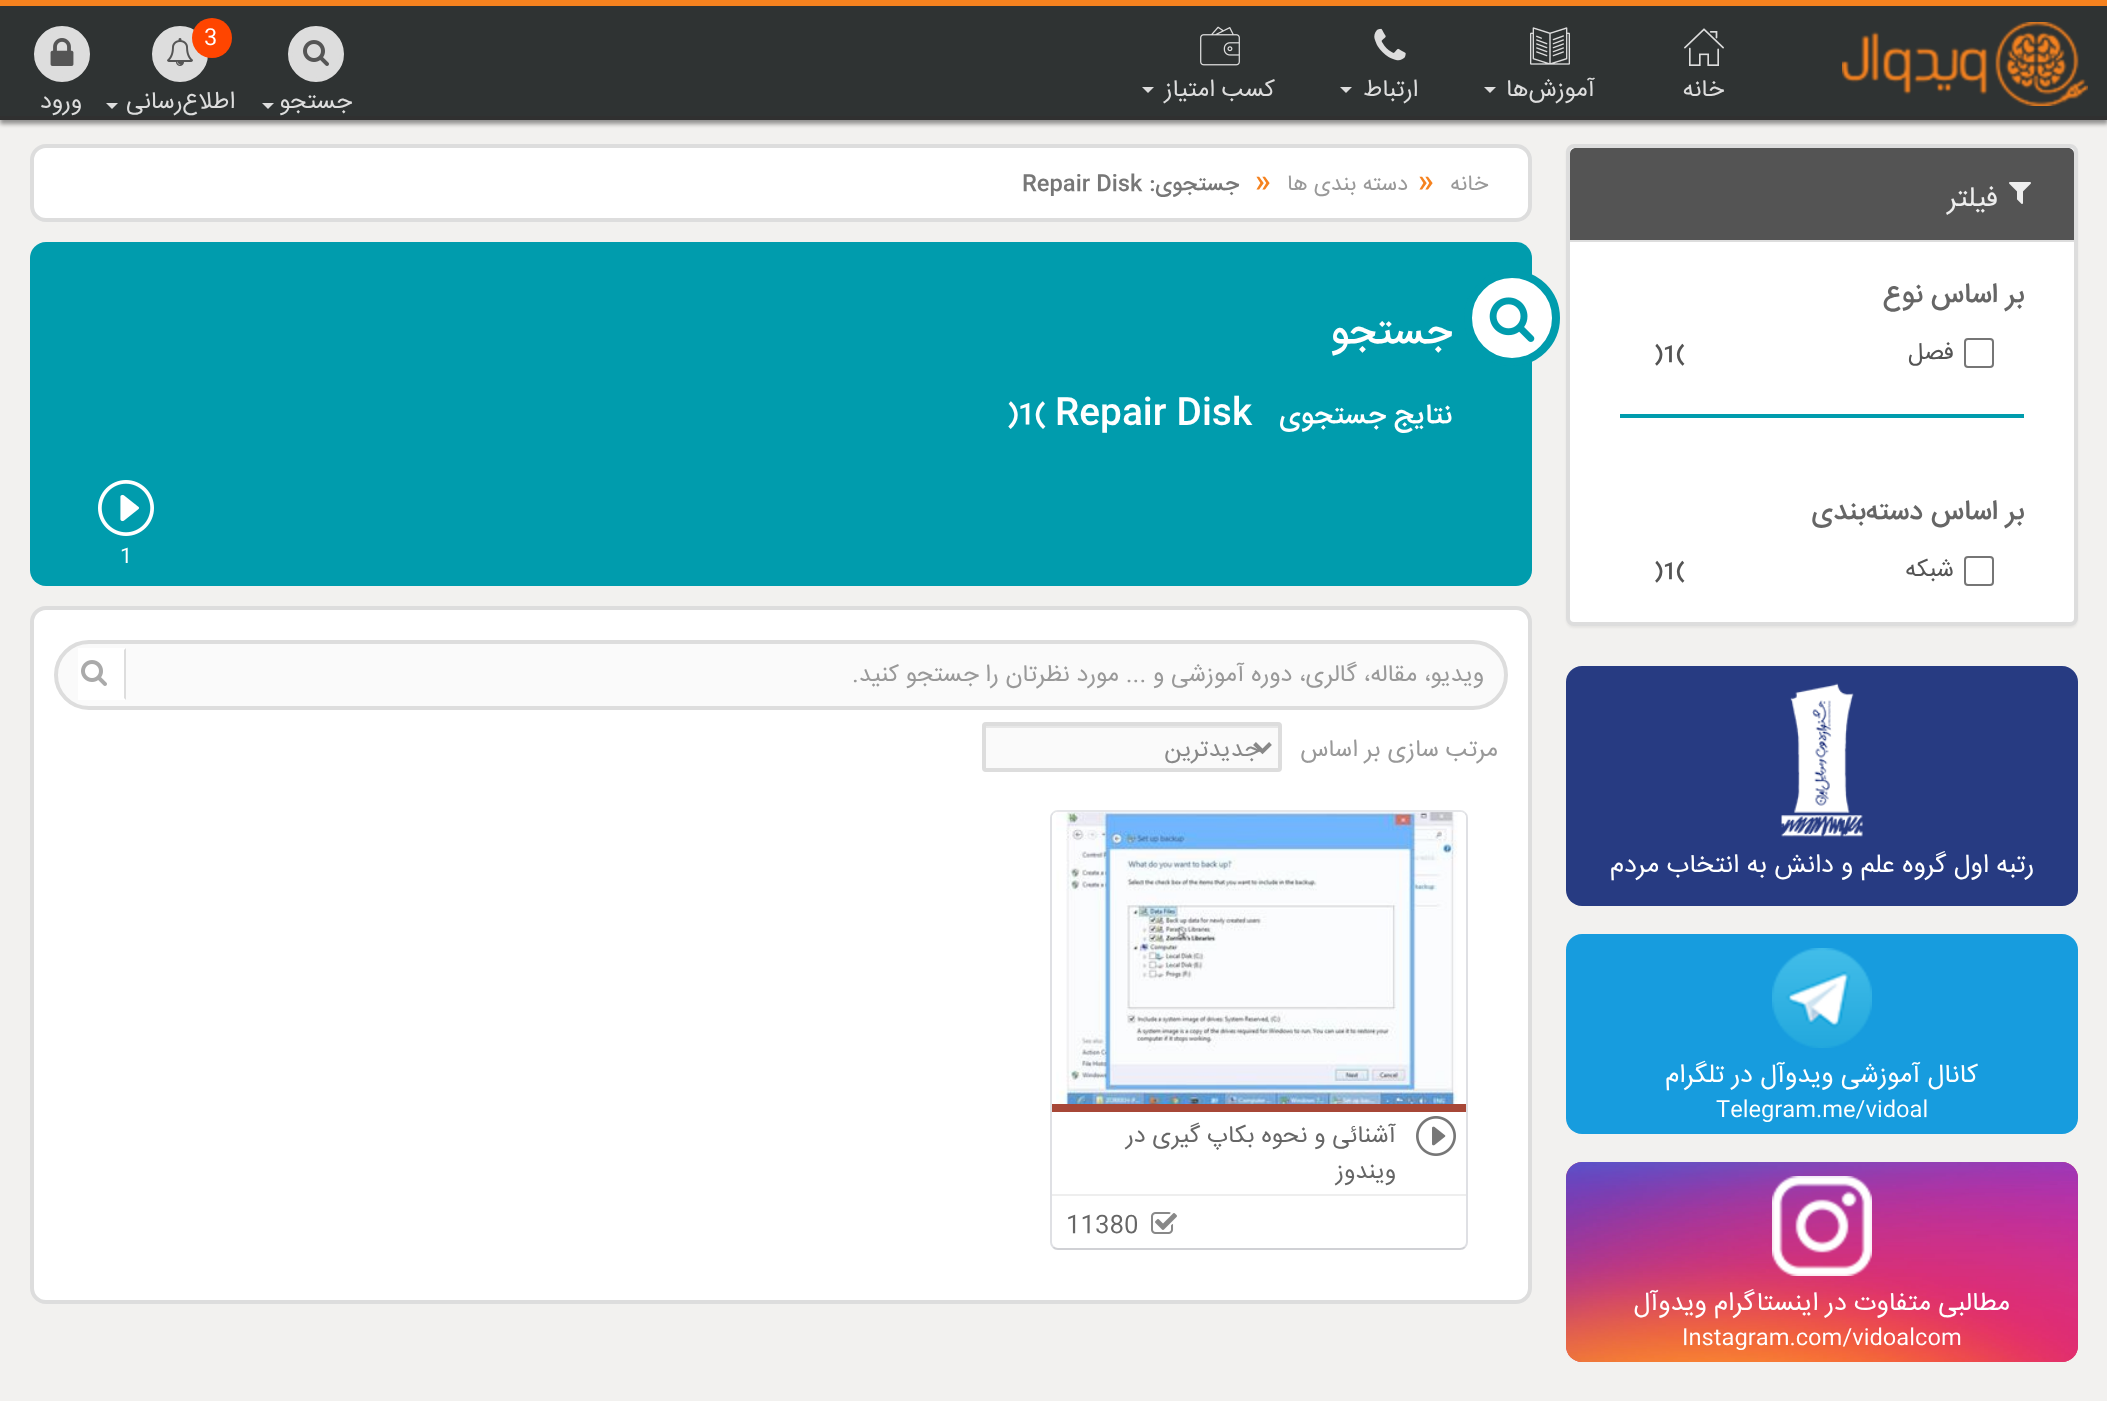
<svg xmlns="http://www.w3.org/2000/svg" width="2107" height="1401">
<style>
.a{font:24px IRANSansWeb;direction:rtl;fill:#ddd}
.b{font:22px IRANSansWeb;fill:#fff}
.c{font:28px IRANSansWeb;direction:rtl;fill:#eee}
.d{font:500 28px IRANSansWeb;direction:rtl;fill:#666}
.e{font:24px IRANSansWeb;direction:rtl;fill:#545454}
.f{font:500 22px IRANSansWeb;fill:#545454}
.g{font:26px IRANSansWeb;direction:rtl;fill:#fff}
.h{font:22px IRANSansWeb;direction:rtl;fill:#999}
.i{font:500 30px IRANSansWeb;fill:#f5821f}
.j{font:500 22px IRANSansWeb;direction:rtl;fill:#777}
.k{font:500 22px IRANSansWeb;fill:#777}
.l{font:500 40px IRANSansWeb;direction:rtl;fill:#fff}
.m{font:500 28px IRANSansWeb;direction:rtl;fill:#fff}
.n{font:500 36px IRANSansWeb;fill:#fff}
.o{font:500 28px IRANSansWeb;fill:#fff}
.p{font:20px IRANSansWeb;fill:#fff}
.q{font:24px IRANSansWeb;direction:rtl;fill:#999}
.r{font:24px IRANSansWeb;direction:rtl;fill:#888}
.s{font:24px IRANSansWeb;direction:rtl;fill:#666}
.t{font:24px IRANSansWeb;fill:#666}
</style>
<defs>
<clipPath id="clip1"><path d="M1028 728h232v44H1028z"/></clipPath>
</defs>
<rect width="100%" height="100%" fill="#f2f1ef"/>
<path fill="#00000066" filter="blur(2px)" d="M0 4h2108v120H0z"/>
<path fill="#2f3333" d="M0 6h2107v110H0z"/>
<path fill="#f5821f" d="M0 0h2107v6H0z"/>
<path fill="#303030" d="M0 116h2107v4H0z"/>
<image href="1.png" x="1842" y="22" width="246" height="84"/>
<image href="2.png" x="1684" y="28" width="40" height="38"/>
<image href="3.png" x="1530" y="27" width="40" height="38"/>
<path fill="#ddd" d="M1484 87h12l-6 6z"/>
<image href="4.png" x="1374" y="28" width="32" height="33"/>
<path fill="#ddd" d="M1340 87h12l-6 6z"/>
<image href="5.png" x="1200" y="26" width="40" height="40"/>
<path fill="#ddd" d="M1142 87h12l-6 6z"/>
<circle fill="#ddd" stroke="#ddd" stroke-width="4" cx="316" cy="54" r="26"/>
<image href="6.png" x="303" y="40" width="26" height="26"/>
<path fill="#ddd" d="M262 103h12l-6 6z"/>
<circle fill="#ddd" stroke="#ddd" stroke-width="4" cx="180" cy="54" r="26"/>
<image href="7.png" x="167" y="38" width="26" height="28"/>
<circle fill="#ff4500" cx="212" cy="38" r="20"/>
<path fill="#ddd" d="M106 103h12l-6 6z"/>
<circle fill="#ddd" stroke="#ddd" stroke-width="4" cx="62" cy="54" r="26"/>
<image href="8.png" x="50" y="38" width="24" height="28"/>
<rect fill="#0000000d" filter="blur(1px)" x="1566" y="146" width="512" height="482" rx="8"/>
<rect fill="#fff" stroke="#ddd" stroke-width="4" x="1568" y="146" width="508" height="478" rx="6"/>
<path fill="#545454" d="M1576 148h492c3.5 0 6 2.5 6 6v86h-504v-86c0-3.5 2.5-6 6-6z"/>
<image href="9.png" x="2009" y="182" width="22" height="22"/>
<path fill="#ddd" d="M1570 240h504v2H1570z"/>
<rect fill="none" stroke="#767676" stroke-width="2" x="1965" y="339" width="28" height="28" rx="3"/>
<path fill="#009cad" d="M1620 414h404v4H1620z"/>
<rect fill="none" stroke="#767676" stroke-width="2" x="1965" y="557" width="28" height="28" rx="3"/>
<rect fill="#273b82" x="1566" y="666" width="512" height="240" rx="16"/>
<image href="10.png" x="1781" y="683" width="82" height="154"/>
<rect fill="#179cde" x="1566" y="934" width="512" height="200" rx="16"/>
<image href="11.png" x="1772" y="948" width="100" height="100"/>
<rect fill="#e4405f" x="1566" y="1162" width="512" height="200" rx="16"/>
<image href="12.png" x="1566" y="1162" width="512" height="200"/>
<image href="13.png" x="1772" y="1176" width="100" height="100"/>
<rect fill="#fff" stroke="#ddd" stroke-width="4" x="32" y="146" width="1498" height="74" rx="14"/>
<rect fill="#009cad" x="30" y="242" width="1502" height="344" rx="16"/>
<circle fill="#fff" stroke="#009cad" stroke-width="8" cx="1512" cy="318" r="44"/>
<image href="14.png" x="1489" y="297" width="46" height="45"/>
<image href="15.png" x="98" y="480" width="56" height="56"/>
<rect fill="#fff" stroke="#ddd" stroke-width="4" x="32" y="608" width="1498" height="694" rx="14"/>
<rect fill="#fafafa" stroke="#ddd" stroke-width="4" x="56" y="642" width="1450" height="66" rx="33"/>
<path fill="#fff" d="M78 648h48v52H78z"/>
<path fill="#ddd" d="M126 648v52l-2-2v-48z"/>
<image href="16.png" x="81" y="660" width="26" height="26"/>
<rect fill="#fafafa" x="982" y="722" width="300" height="50" rx="4"/>
<path fill="#e7e7e7" d="M986 726h292v2H986z"/>
<rect fill="none" stroke="#ddd" stroke-width="4" x="984" y="724" width="296" height="46" rx="2"/>
<path fill="none" stroke="#888" stroke-width="4" d="M1254.5 743.5l8 8l8-8"/>
<path fill="none" stroke="#e5e6e9" stroke-width="2" d="M1053 813c1.5-1.5 3-2 5-2h402c2 0 3.5 .5 5 2"/>
<path fill="none" stroke="#dfe0e4" stroke-width="2" d="M1465 813c1.5 1.5 2 3 2 5v424c0 2-.5 3.5-2 5"/>
<path fill="none" stroke="#d0d1d5" stroke-width="2" d="M1465 1247c-1.5 1.5-3 2-5 2h-402c-2 0-3.5-.5-5-2"/>
<path fill="none" stroke="#dfe0e4" stroke-width="2" d="M1053 1247c-1.5-1.5-2-3-2-5v-424c0-2 .5-3.5 2-5"/>
<path fill="#fff" d="M1058 812h402c3.5 0 6 2.5 6 6v294h-414v-294c0-3.5 2.5-6 6-6z"/>
<path fill="#a74737" d="M1052 1104h414v8H1052z"/>
<image href="17.png" x="1056" y="812" width="402" height="292"/>
<path fill="#eee" d="M1052 1194h414v2H1052z"/>
<image href="18.png" x="1416" y="1116" width="40" height="40"/>
<image href="19.png" x="1151" y="1212" width="26" height="22"/>
<text class="a" x="1724" y="96">خانه</text>
<text class="a" x="1595" y="96">آموزش‌ها</text>
<text class="a" x="1418" y="96">ارتباط</text>
<text class="a" x="1275" y="96">کسب امتیاز</text>
<text class="a" x="352" y="108">جستجو</text>
<text class="b" x="204" y="44">3</text>
<text class="a" x="235" y="108">اطلاع‌رسانی</text>
<text class="a" x="82" y="108">ورود</text>
<text class="c" x="1998" y="206">فیلتر</text>
<text class="d" x="2024" y="302">بر اساس نوع</text>
<text class="e" x="1954" y="359">فصل</text>
<text class="f" x="1663" y="361">1(</text>
<text class="f" x="1654" y="361">)</text>
<text class="d" x="2024" y="519">بر اساس دسته‌بندی</text>
<text class="e" x="1954" y="576">شبکه</text>
<text class="f" x="1663" y="578">1(</text>
<text class="f" x="1654" y="578">)</text>
<text class="g" x="2034" y="872">رتبه اول گروه علم و دانش به انتخاب مردم</text>
<text class="g" x="1978" y="1082">کانال آموزشی ویدوآل در تلگرام</text>
<text class="b" x="1716" y="1116">Telegram.me/vidoal</text>
<text class="g" x="2010" y="1310">مطالبی متفاوت در اینستاگرام ویدوآل</text>
<text class="b" x="1682" y="1344">Instagram.com/vidoalcom</text>
<text class="h" x="1488" y="190">خانه</text>
<text class="i" x="1418" y="190">»</text>
<text class="h" x="1408" y="190">دسته بندی ها</text>
<text class="i" x="1255" y="190">»</text>
<text class="j" x="1239" y="190">جستجوی:</text>
<text class="k" x="1022" y="190">Repair Disk</text>
<text class="l" x="1452" y="343">جستجو</text>
<text class="m" x="1452" y="423">نتایج جستجوی</text>
<text class="n" x="1055" y="423">Repair Disk</text>
<text class="o" x="1018" y="423">1(</text>
<text class="o" x="1007" y="423">)</text>
<text class="p" x="120" y="562">1</text>
<text class="q" x="1484" y="681">ویدیو، مقاله، گالری، دوره آموزشی و ... مورد نظرتان را جستجو کنید.</text>
<text class="q" x="1498" y="756">مرتب سازی بر اساس</text>
<g clip-path="url(#clip1)">
<text class="r" x="1260" y="756">جدیدترین</text>
</g>
<text class="s" x="1396" y="1142">آشنائی و نحوه بکاپ گیری در</text>
<text class="s" x="1396" y="1178">ویندوز</text>
<text class="t" x="1066" y="1232">11380</text>
</svg>
